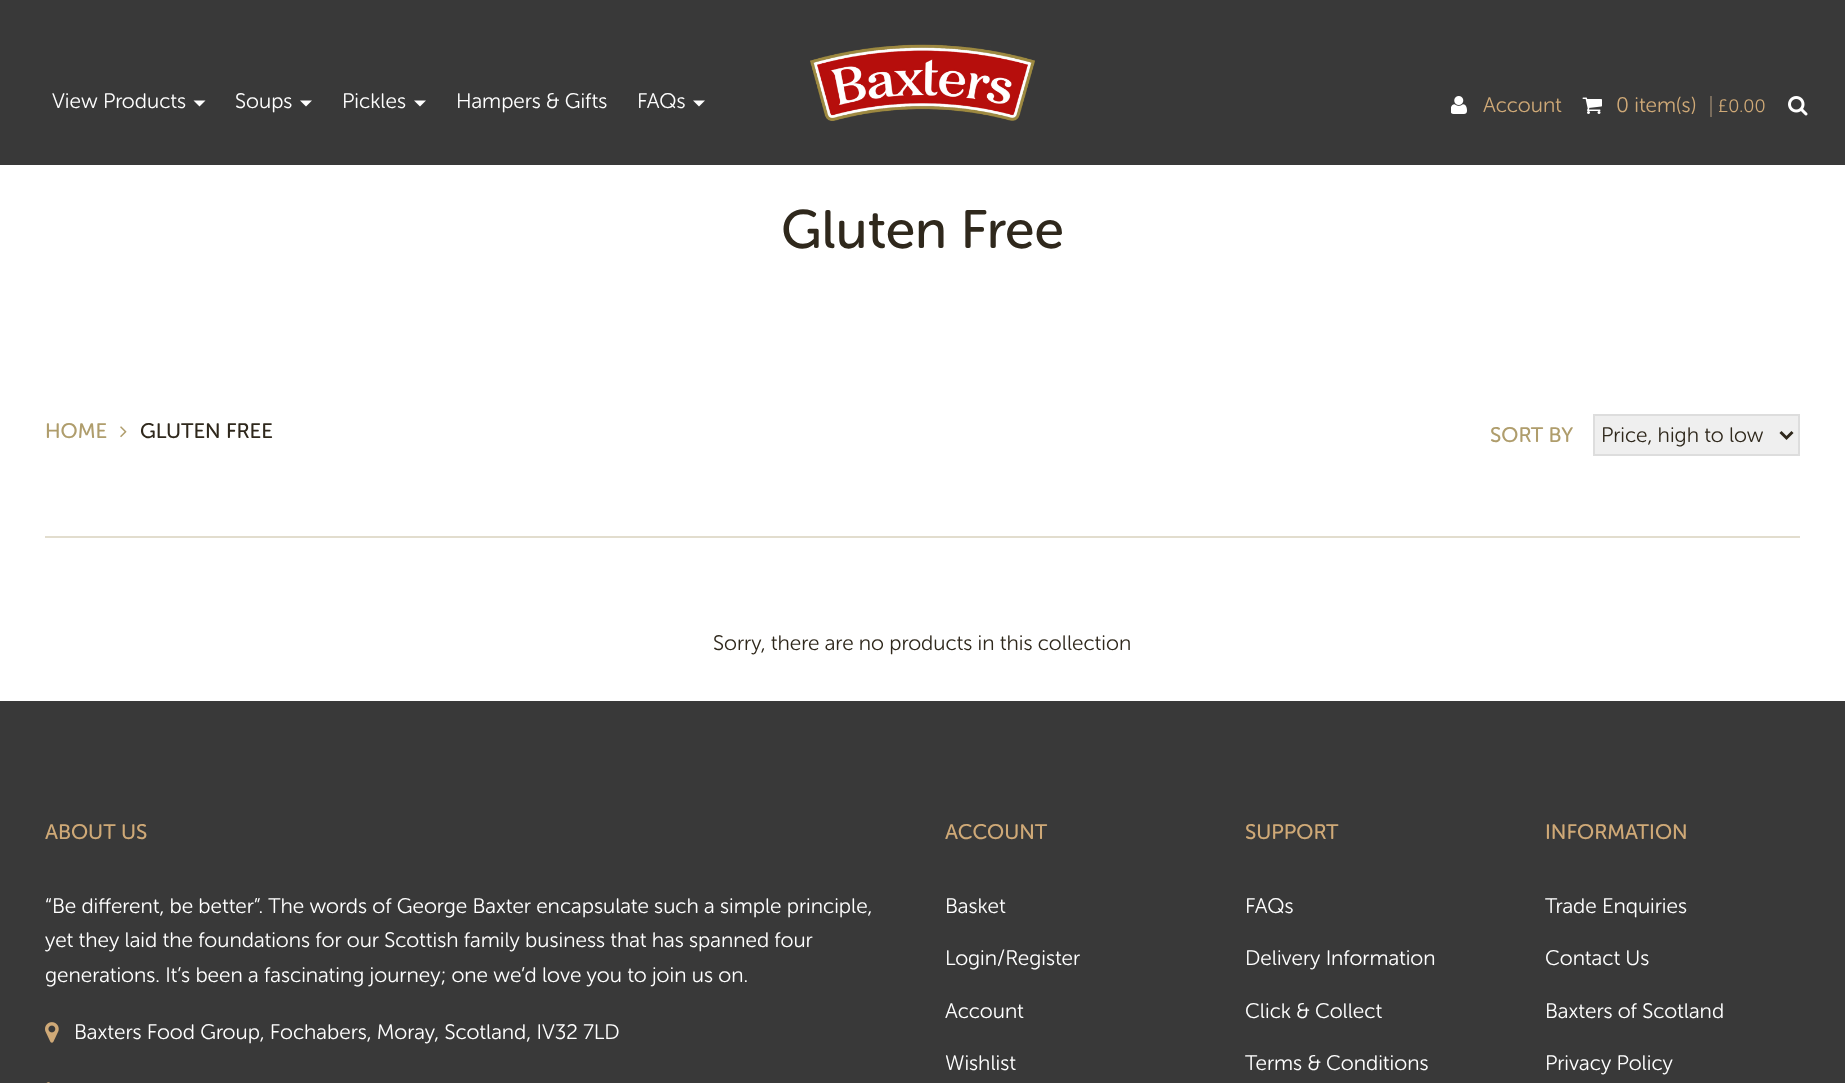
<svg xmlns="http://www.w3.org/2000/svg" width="1845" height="1083">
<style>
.a{font:300 21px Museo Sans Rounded;fill:#fff}
.b{font:300 21px Museo Sans Rounded;fill:#cfa977}
.c{font:300 18px Museo Sans Rounded;fill:#cfa977}
.d{font:54px Museo Sans Rounded;fill:#2f281c}
.e{font:21px Museo Sans Rounded;fill:#af9d6c}
.f{font:21px Museo Sans Rounded;fill:#2f281c}
.g{font:300 21px Museo Sans Rounded;fill:#2f281c}
.h{font:21px Museo Sans Rounded;fill:#cfa977}
</style>
<rect width="100%" height="100%" fill="#fff"/>
<path fill="#393939" d="M0 0h1845v165H0z"/>
<path fill="#fff" d="M193.5 100.5h12l-6 6z"/>
<path fill="#fff" d="M300 100.5h12l-6 6z"/>
<path fill="#fff" d="M414 100.5h12l-6 6z"/>
<path fill="#fff" d="M693 100.5h12l-6 6z"/>
<image href="1.png" x="810" y="44" width="225" height="77"/>
<image href="2.png" x="1451" y="96" width="16" height="18"/>
<image href="3.png" x="1582" y="97" width="20" height="17"/>
<path fill="#796c5c" d="M1710 96h2v21H1710z"/>
<image href="4.png" x="1788" y="96" width="20" height="20"/>
<path fill="#e2ddce" d="M45 536h1755v2H45z"/>
<image href="5.png" x="120" y="426" width="7" height="12"/>
<path fill="#efefef" stroke="#ddd" stroke-width="2" d="M1594 415h205v40H1594z"/>
<path fill="none" stroke="#2f281c" stroke-width="3" d="M1780.5 432l6 6l6-6"/>
<path fill="#393939" d="M0 701h1845v382H0z"/>
<image href="6.png" x="45" y="1022" width="14" height="21"/>
<image href="7.png" x="46" y="1082" width="4" height="1"/>
<text class="a" x="52" y="108">View Products</text>
<text class="a" x="235" y="108">Soups</text>
<text class="a" x="342" y="108">Pickles</text>
<text class="a" x="456" y="108">Hampers &amp; Gifts</text>
<text class="a" x="637" y="108">FAQs</text>
<text class="b" x="1483" y="112">Account</text>
<text class="b" x="1616" y="112">0 item(s)</text>
<text class="c" x="1718" y="112">£0.00</text>
<text class="d" x="781" y="248">Gluten Free</text>
<text class="e" x="45" y="438">HOME</text>
<text class="f" x="140" y="438">GLUTEN FREE</text>
<text class="e" x="1490" y="442">SORT BY</text>
<text class="g" x="1601" y="442">Price, high to low</text>
<text class="g" x="713" y="650">Sorry, there are no products in this collection</text>
<text class="h" x="45" y="839">ABOUT US</text>
<text class="a" x="45" y="913">“Be different, be better”. The words of George Baxter encapsulate such a simple principle,</text>
<text class="a" x="45" y="947">yet they laid the foundations for our Scottish family business that has spanned four</text>
<text class="a" x="45" y="982">generations. It’s been a fascinating journey; one we’d love you to join us on.</text>
<text class="a" x="74" y="1039">Baxters Food Group, Fochabers, Moray, Scotland, IV32 7LD</text>
<text class="h" x="945" y="839">ACCOUNT</text>
<text class="a" x="945" y="913">Basket</text>
<text class="a" x="945" y="965">Login/Register</text>
<text class="a" x="945" y="1018">Account</text>
<text class="a" x="945" y="1070">Wishlist</text>
<text class="h" x="1245" y="839">SUPPORT</text>
<text class="a" x="1245" y="913">FAQs</text>
<text class="a" x="1245" y="965">Delivery Information</text>
<text class="a" x="1245" y="1018">Click &amp; Collect</text>
<text class="a" x="1245" y="1070">Terms &amp; Conditions</text>
<text class="h" x="1545" y="839">INFORMATION</text>
<text class="a" x="1545" y="913">Trade Enquiries</text>
<text class="a" x="1545" y="965">Contact Us</text>
<text class="a" x="1545" y="1018">Baxters of Scotland</text>
<text class="a" x="1545" y="1070">Privacy Policy</text>
</svg>
